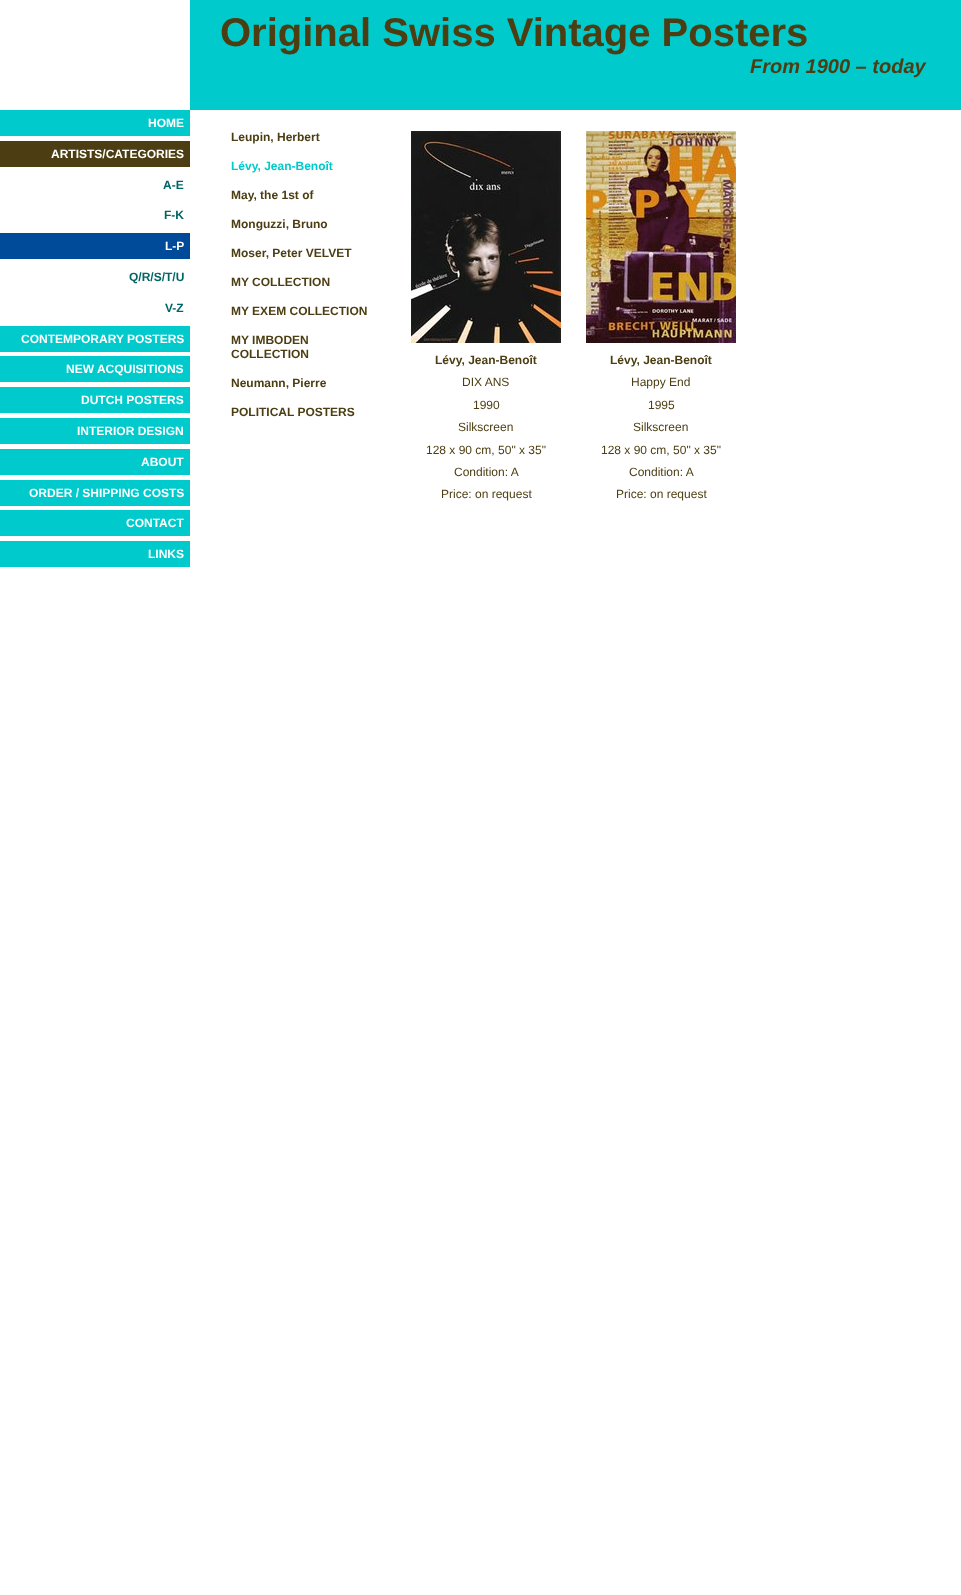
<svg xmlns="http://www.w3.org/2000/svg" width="961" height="1595">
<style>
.a{font:bold 40px Liberation Sans;fill:#4c3e12}
.b{font:italic bold 20px Liberation Sans;fill:#4c3e12}
.c{font:bold 12px Liberation Sans;fill:#fff}
.d{font:bold 12px Liberation Sans;fill:#006566}
.e{font:bold 12px Liberation Sans;fill:#4c3e12}
.f{font:bold 12px Liberation Sans;fill:#00cacc}
.g{font:12px Liberation Sans;fill:#4c3e12}
</style>
<rect width="100%" height="100%" fill="#fff"/>
<path fill="#00cacc" d="M190 0h771v110H190z"/>
<path fill="#00cacc" d="M0 110h190v26H0z"/>
<path fill="#4c3e12" d="M0 141h190v26H0z"/>
<path fill="#004b99" d="M0 233h190v26H0z"/>
<path fill="#00cacc" d="M0 326h190v26H0z"/>
<path fill="#00cacc" d="M0 356h190v26H0z"/>
<path fill="#00cacc" d="M0 387h190v26H0z"/>
<path fill="#00cacc" d="M0 418h190v26H0z"/>
<path fill="#00cacc" d="M0 449h190v26H0z"/>
<path fill="#00cacc" d="M0 480h190v26H0z"/>
<path fill="#00cacc" d="M0 510h190v26H0z"/>
<path fill="#00cacc" d="M0 541h190v26H0z"/>
<image href="1.png" x="411" y="131" width="150" height="212"/>
<image href="2.png" x="586" y="131" width="150" height="212"/>
<text class="a" x="220" y="46">Original Swiss Vintage Posters</text>
<text class="b" x="750" y="73">From 1900 – today</text>
<text class="c" x="148" y="127">HOME</text>
<text class="c" x="51" y="158">ARTISTS/CATEGORIES</text>
<text class="d" x="163" y="189">A-E</text>
<text class="d" x="164" y="219">F-K</text>
<text class="c" x="165" y="250">L-P</text>
<text class="d" x="129" y="281">Q/R/S/T/U</text>
<text class="d" x="165" y="312">V-Z</text>
<text class="c" x="21" y="343">CONTEMPORARY POSTERS</text>
<text class="c" x="66" y="373">NEW ACQUISITIONS</text>
<text class="c" x="81" y="404">DUTCH POSTERS</text>
<text class="c" x="77" y="435">INTERIOR DESIGN</text>
<text class="c" x="141" y="466">ABOUT</text>
<text class="c" x="29" y="497">ORDER / SHIPPING COSTS</text>
<text class="c" x="126" y="527">CONTACT</text>
<text class="c" x="148" y="558">LINKS</text>
<text class="e" x="231" y="141">Leupin, Herbert</text>
<text class="f" x="231" y="170">Lévy, Jean-Benoît</text>
<text class="e" x="231" y="199">May, the 1st of</text>
<text class="e" x="231" y="228">Monguzzi, Bruno</text>
<text class="e" x="231" y="257">Moser, Peter VELVET</text>
<text class="e" x="231" y="286">MY COLLECTION</text>
<text class="e" x="231" y="315">MY EXEM COLLECTION</text>
<text class="e" x="231" y="344">MY IMBODEN</text>
<text class="e" x="231" y="358">COLLECTION</text>
<text class="e" x="231" y="387">Neumann, Pierre</text>
<text class="e" x="231" y="416">POLITICAL POSTERS</text>
<text class="e" x="435" y="364">Lévy, Jean-Benoît</text>
<text class="g" x="462" y="386">DIX ANS</text>
<text class="g" x="473" y="409">1990</text>
<text class="g" x="458" y="431">Silkscreen</text>
<text class="g" x="426" y="454">128 x 90 cm, 50" x 35"</text>
<text class="g" x="454" y="476">Condition: A</text>
<text class="g" x="441" y="498">Price: on request</text>
<text class="e" x="610" y="364">Lévy, Jean-Benoît</text>
<text class="g" x="631" y="386">Happy End</text>
<text class="g" x="648" y="409">1995</text>
<text class="g" x="633" y="431">Silkscreen</text>
<text class="g" x="601" y="454">128 x 90 cm, 50" x 35"</text>
<text class="g" x="629" y="476">Condition: A</text>
<text class="g" x="616" y="498">Price: on request</text>
</svg>
